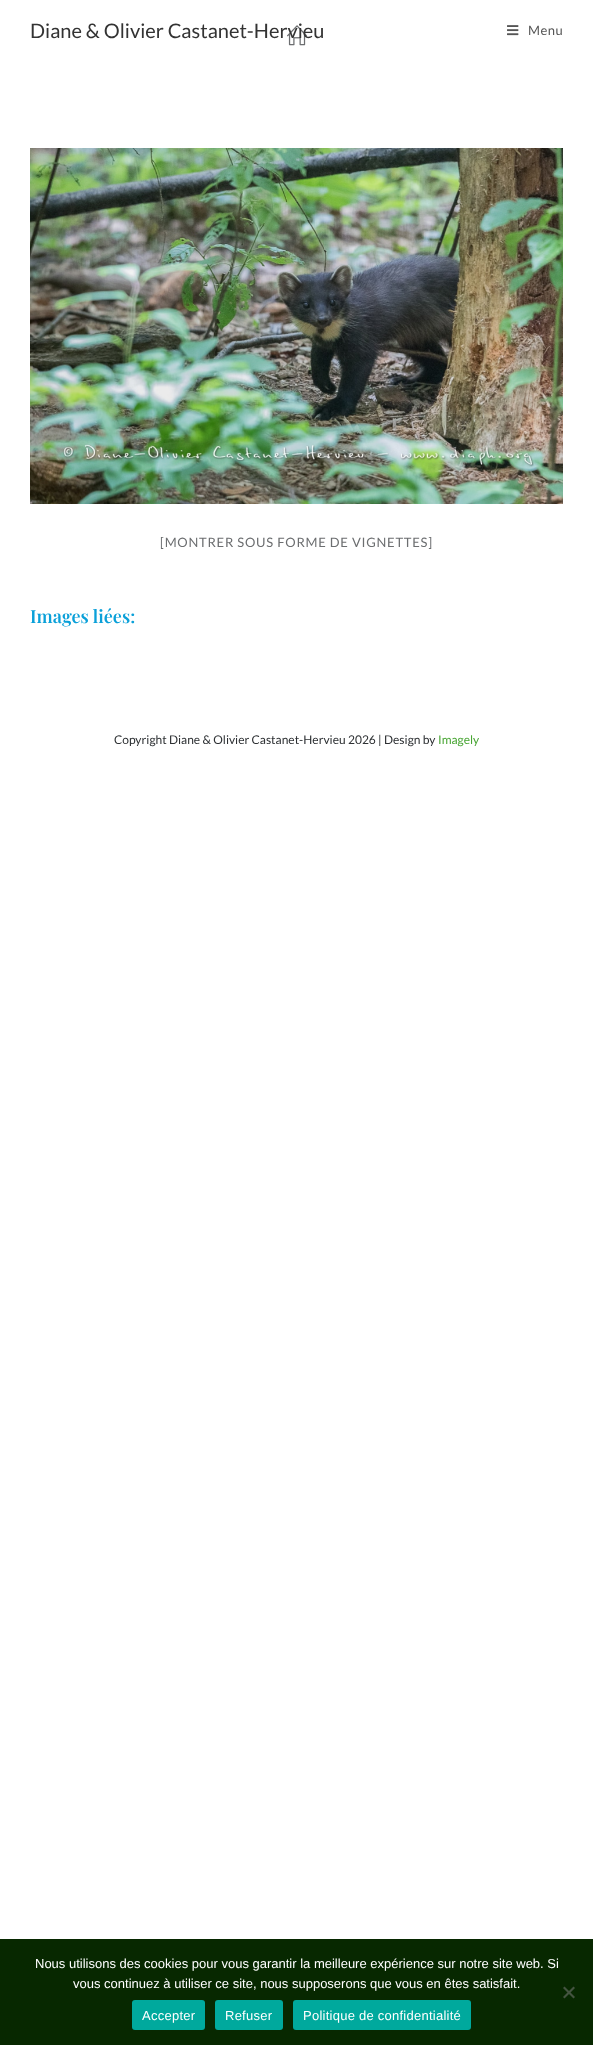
<svg xmlns="http://www.w3.org/2000/svg" width="593" height="2045">
<style>
.a{font:20px Lato;fill:#333}
.b{font:13px Lato;letter-spacing:0.5px;fill:#555}
.c{font:13px Lato;letter-spacing:0.75px;fill:#6c6e70}
.d{font:600 18px Playfair Display;fill:#0aa0d9}
.e{font:12px Lato;fill:#2d3033}
.f{font:12px Lato;fill:#48a533}
.g{font:13px Liberation Sans;fill:#fff}
.h{font:13px Liberation Sans;letter-spacing:0.25px;fill:#fff}
</style>
<rect width="100%" height="100%" fill="#fff"/>
<image href="1.png" x="507" y="25" width="12" height="11"/>
<image href="2.png" x="287" y="25" width="20" height="21"/>
<image href="3.png" x="30" y="148" width="533" height="356"/>
<path fill="#072800" d="M0 1939h593v106H0z"/>
<path fill="#445440" d="M573.5 1986.5l1.5 1.5l-10.5 10.5l-1.5-1.5z"/>
<path fill="#445440" d="M563 1988l1.5-1.5l10.5 10.5l-1.5 1.5z"/>
<rect fill="#00a99d" x="132" y="2000" width="73" height="30" rx="3"/>
<rect fill="#00a99d" x="215" y="2000" width="68" height="30" rx="3"/>
<rect fill="#00a99d" x="293" y="2000" width="178" height="30" rx="3"/>
<text class="a" x="30" y="38">Diane &amp; Olivier Castanet-Hervieu</text>
<text class="b" x="528" y="35">Menu</text>
<text class="c" x="160" y="547">[MONTRER SOUS FORME DE VIGNETTES]</text>
<text class="d" x="30" y="623">Images liées:</text>
<text class="e" x="114" y="744">Copyright Diane &amp; Olivier Castanet-Hervieu 2026 | Design by</text>
<text class="f" x="438" y="744">Imagely</text>
<text class="g" x="35" y="1968">Nous utilisons des cookies pour vous garantir la meilleure expérience sur notre site web. Si</text>
<text class="g" x="73" y="1988">vous continuez à utiliser ce site, nous supposerons que vous en êtes satisfait.</text>
<text class="h" x="142" y="2020">Accepter</text>
<text class="h" x="225" y="2020">Refuser</text>
<text class="h" x="303" y="2020">Politique de confidentialité</text>
</svg>
